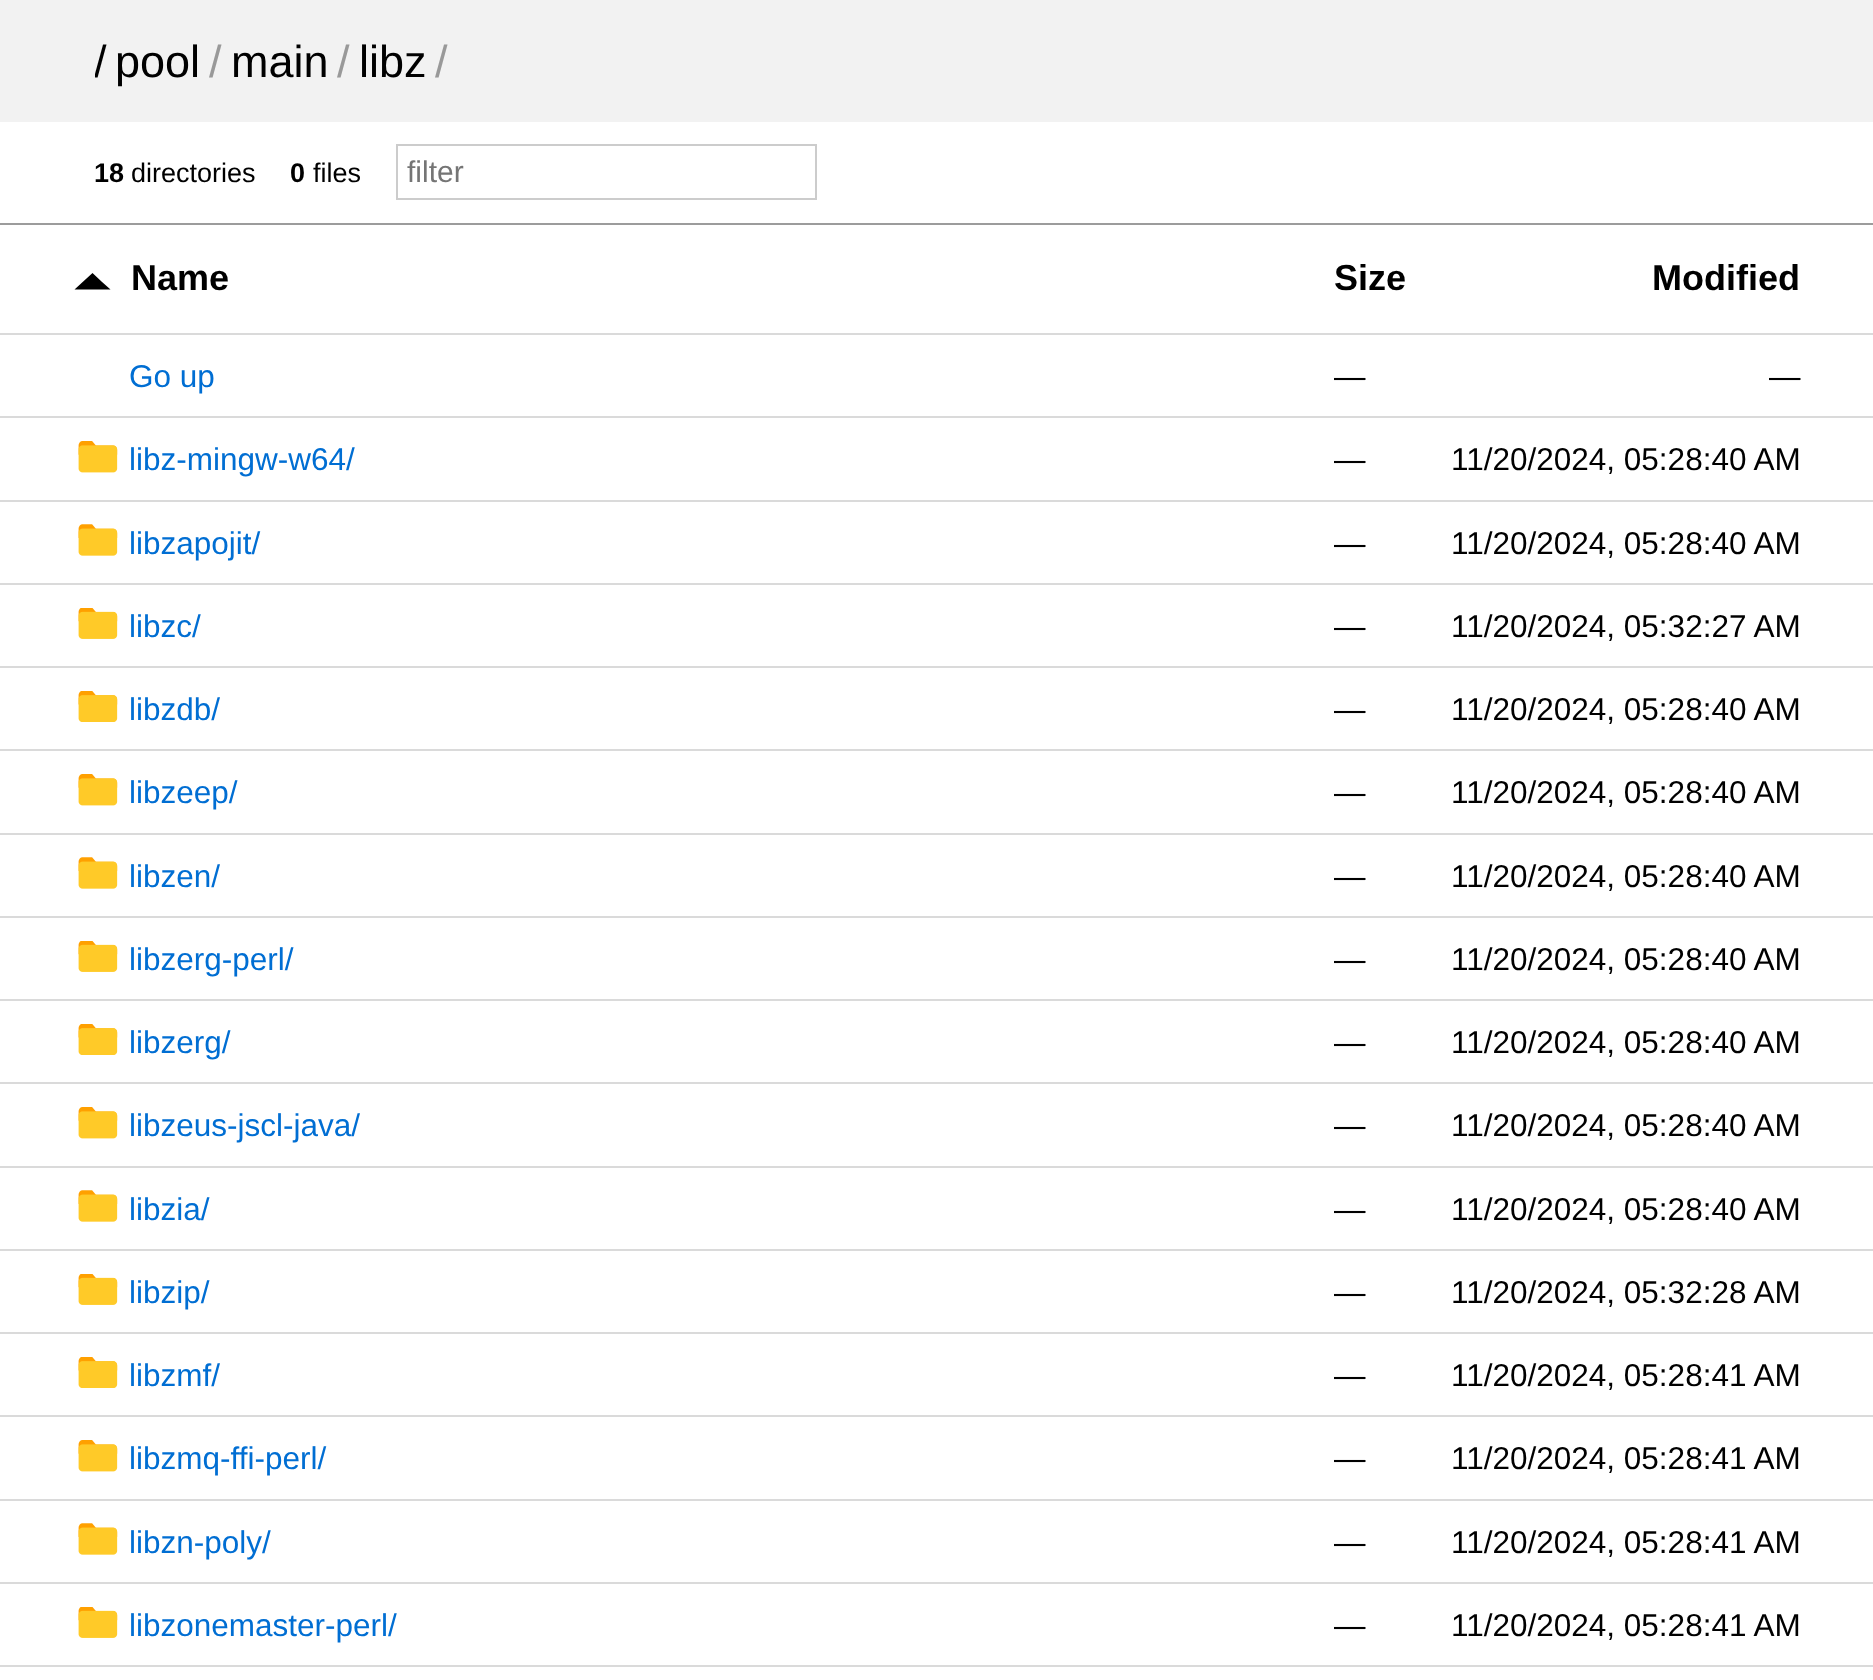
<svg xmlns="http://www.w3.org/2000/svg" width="1873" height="1680">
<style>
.a{font:45px Liberation Sans;fill:#000}
.b{font:45px Liberation Sans;fill:#999}
.c{font:bold 27px Liberation Sans;fill:#000}
.d{font:27px Liberation Sans;fill:#000}
.e{font:30px Liberation Sans;fill:#757575}
.f{font:bold 36px Liberation Sans;fill:#000}
.g{font:31.5px Liberation Sans;fill:#006ed3}
.h{font:31.5px Liberation Sans;fill:#000}
</style>
<defs>
<clipPath id="clip1"><path d="M95 36h1685v52H95z"/></clipPath>
</defs>
<rect width="100%" height="100%" fill="#fff"/>
<path fill="#f2f2f2" d="M0 0h1873v122H0z"/>
<path fill="#9c9c9c" d="M0 223h1873v2H0z"/>
<path fill="none" stroke="#ccc" stroke-width="2" d="M397 145h419v54H397z"/>
<path fill="#dadada" d="M0 333h1873v2H0z"/>
<path fill="#000" d="M110.5 289.5h-36l18-16.5l9 8.5z"/>
<path fill="#dadada" d="M0 416h1873v2H0z"/>
<path fill="#dadada" d="M0 500h1873v2H0z"/>
<image href="1.png" x="78" y="441" width="40" height="32"/>
<path fill="#dadada" d="M0 583h1873v2H0z"/>
<image href="2.png" x="78" y="524" width="40" height="32"/>
<path fill="#dadada" d="M0 666h1873v2H0z"/>
<image href="3.png" x="78" y="608" width="40" height="31"/>
<path fill="#dadada" d="M0 749h1873v2H0z"/>
<image href="4.png" x="78" y="691" width="40" height="31"/>
<path fill="#dadada" d="M0 833h1873v2H0z"/>
<image href="1.png" x="78" y="774" width="40" height="32"/>
<path fill="#dadada" d="M0 916h1873v2H0z"/>
<image href="2.png" x="78" y="857" width="40" height="32"/>
<path fill="#dadada" d="M0 999h1873v2H0z"/>
<image href="3.png" x="78" y="941" width="40" height="31"/>
<path fill="#dadada" d="M0 1082h1873v2H0z"/>
<image href="4.png" x="78" y="1024" width="40" height="31"/>
<path fill="#dadada" d="M0 1166h1873v2H0z"/>
<image href="1.png" x="78" y="1107" width="40" height="32"/>
<path fill="#dadada" d="M0 1249h1873v2H0z"/>
<image href="2.png" x="78" y="1190" width="40" height="32"/>
<path fill="#dadada" d="M0 1332h1873v2H0z"/>
<image href="3.png" x="78" y="1274" width="40" height="31"/>
<path fill="#dadada" d="M0 1415h1873v2H0z"/>
<image href="4.png" x="78" y="1357" width="40" height="31"/>
<path fill="#dadada" d="M0 1499h1873v2H0z"/>
<image href="1.png" x="78" y="1440" width="40" height="32"/>
<path fill="#dadada" d="M0 1582h1873v2H0z"/>
<image href="2.png" x="78" y="1523" width="40" height="32"/>
<path fill="#dadada" d="M0 1665h1873v2H0z"/>
<image href="3.png" x="78" y="1607" width="40" height="31"/>
<g clip-path="url(#clip1)">
<text class="a" x="94" y="77">/</text>
</g>
<text class="a" x="115" y="77">pool</text>
<text class="b" x="209" y="77">/</text>
<text class="a" x="231" y="77">main</text>
<text class="b" x="337" y="77">/</text>
<text class="a" x="359" y="77">libz</text>
<text class="b" x="435" y="77">/</text>
<text class="c" x="94" y="182">18</text>
<text class="d" x="131" y="182">directories</text>
<text class="c" x="290" y="182">0</text>
<text class="d" x="313" y="182">files</text>
<text class="e" x="407" y="182">filter</text>
<text class="f" x="131" y="290">Name</text>
<text class="f" x="1334" y="290">Size</text>
<text class="f" x="1652" y="290">Modified</text>
<text class="g" x="129" y="387">Go up</text>
<text class="h" x="1334" y="387">—</text>
<text class="h" x="1769" y="387">—</text>
<text class="g" x="129" y="470">libz-mingw-w64/</text>
<text class="h" x="1334" y="470">—</text>
<text class="h" x="1451" y="470">11/20/2024, 05:28:40 AM</text>
<text class="g" x="129" y="554">libzapojit/</text>
<text class="h" x="1334" y="554">—</text>
<text class="h" x="1451" y="554">11/20/2024, 05:28:40 AM</text>
<text class="g" x="129" y="637">libzc/</text>
<text class="h" x="1334" y="637">—</text>
<text class="h" x="1451" y="637">11/20/2024, 05:32:27 AM</text>
<text class="g" x="129" y="720">libzdb/</text>
<text class="h" x="1334" y="720">—</text>
<text class="h" x="1451" y="720">11/20/2024, 05:28:40 AM</text>
<text class="g" x="129" y="803">libzeep/</text>
<text class="h" x="1334" y="803">—</text>
<text class="h" x="1451" y="803">11/20/2024, 05:28:40 AM</text>
<text class="g" x="129" y="887">libzen/</text>
<text class="h" x="1334" y="887">—</text>
<text class="h" x="1451" y="887">11/20/2024, 05:28:40 AM</text>
<text class="g" x="129" y="970">libzerg-perl/</text>
<text class="h" x="1334" y="970">—</text>
<text class="h" x="1451" y="970">11/20/2024, 05:28:40 AM</text>
<text class="g" x="129" y="1053">libzerg/</text>
<text class="h" x="1334" y="1053">—</text>
<text class="h" x="1451" y="1053">11/20/2024, 05:28:40 AM</text>
<text class="g" x="129" y="1136">libzeus-jscl-java/</text>
<text class="h" x="1334" y="1136">—</text>
<text class="h" x="1451" y="1136">11/20/2024, 05:28:40 AM</text>
<text class="g" x="129" y="1220">libzia/</text>
<text class="h" x="1334" y="1220">—</text>
<text class="h" x="1451" y="1220">11/20/2024, 05:28:40 AM</text>
<text class="g" x="129" y="1303">libzip/</text>
<text class="h" x="1334" y="1303">—</text>
<text class="h" x="1451" y="1303">11/20/2024, 05:32:28 AM</text>
<text class="g" x="129" y="1386">libzmf/</text>
<text class="h" x="1334" y="1386">—</text>
<text class="h" x="1451" y="1386">11/20/2024, 05:28:41 AM</text>
<text class="g" x="129" y="1469">libzmq-ffi-perl/</text>
<text class="h" x="1334" y="1469">—</text>
<text class="h" x="1451" y="1469">11/20/2024, 05:28:41 AM</text>
<text class="g" x="129" y="1553">libzn-poly/</text>
<text class="h" x="1334" y="1553">—</text>
<text class="h" x="1451" y="1553">11/20/2024, 05:28:41 AM</text>
<text class="g" x="129" y="1636">libzonemaster-perl/</text>
<text class="h" x="1334" y="1636">—</text>
<text class="h" x="1451" y="1636">11/20/2024, 05:28:41 AM</text>
</svg>
